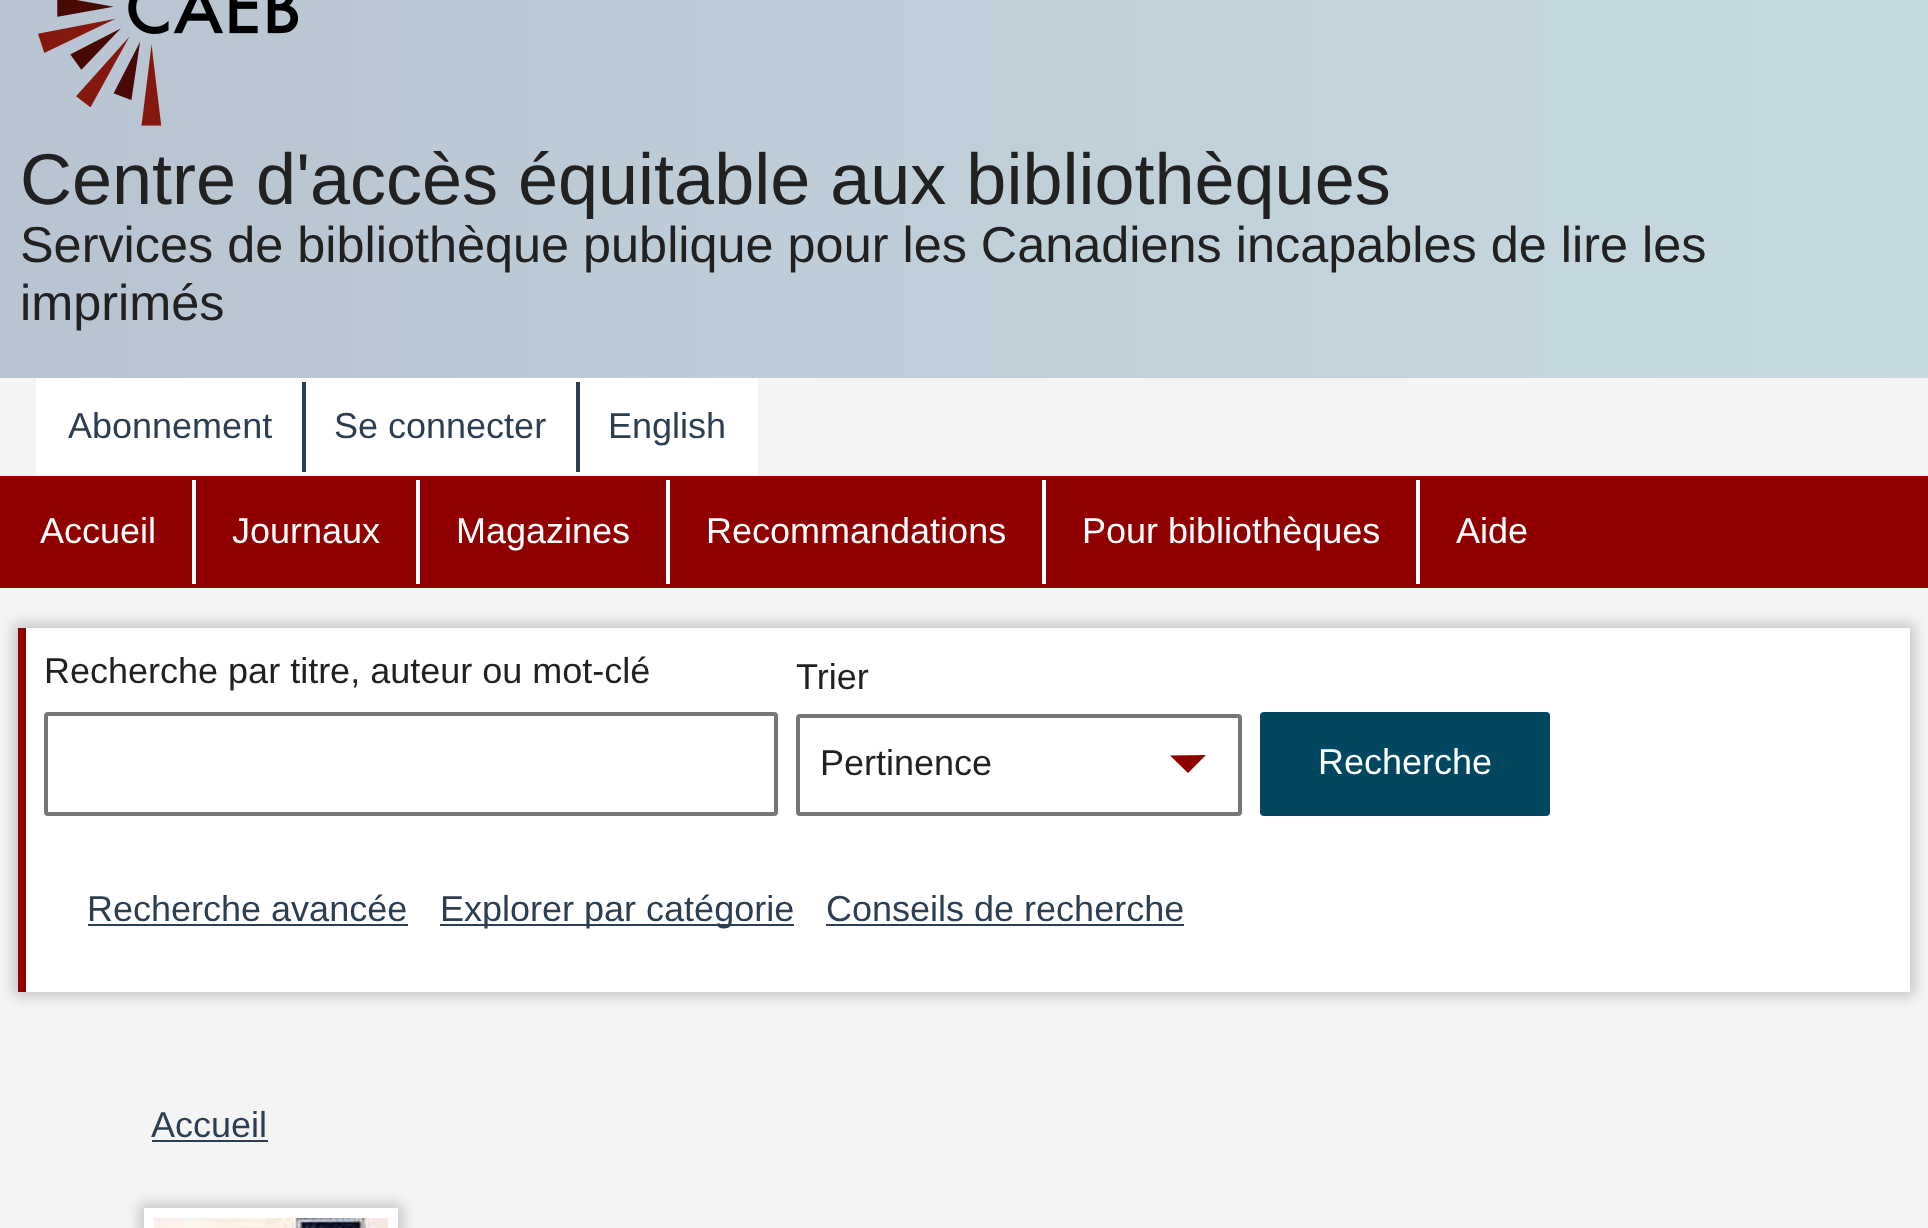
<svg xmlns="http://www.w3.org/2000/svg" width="1928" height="1228">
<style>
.a{font:72px Liberation Sans;fill:#212121}
.b{font:50.4px Liberation Sans;fill:#212121}
.c{font:36px Liberation Sans;fill:#2c3e50}
.d{font:36px Liberation Sans;fill:#fff}
.e{font:36px Liberation Sans;fill:#212121}
</style>
<defs>
<linearGradient id="g1" gradientUnits="userSpaceOnUse" x1="0" y1="118" x2="1928" y2="118"><stop offset="0" stop-color="#b8c4d1"/><stop offset="1" stop-color="#c7dae0"/></linearGradient>
</defs>
<rect width="100%" height="100%" fill="#f4f4f4"/>
<path fill="url(#g1)" d="M0 0h1928v378H0z"/>
<image href="1.png" x="38" y="0" width="260" height="126"/>
<path fill="#fff" d="M36 378h722v98H36z"/>
<path fill="#2c3e50" d="M302 382h4v90H302z"/>
<path fill="#2c3e50" d="M576 382h4v90H576z"/>
<path fill="#900000" d="M0 476h1928v112H0z"/>
<path fill="#fff" d="M192 480h4v104H192z"/>
<path fill="#fff" d="M416 480h4v104H416z"/>
<path fill="#fff" d="M666 480h4v104H666z"/>
<path fill="#fff" d="M1042 480h4v104H1042z"/>
<path fill="#fff" d="M1416 480h4v104H1416z"/>
<path fill="#00000033" filter="blur(7px)" d="M14 624h1900v372H14z"/>
<path fill="#fff" d="M26 628h1884v364H26z"/>
<path fill="#900000" d="M18 628h8v364H18z"/>
<rect fill="none" stroke="#767676" stroke-width="4" x="46" y="714" width="730" height="100" rx="2"/>
<path fill="#900000" d="M1197 764l-9 9l-18-17.5l36-.5z"/>
<rect fill="none" stroke="#767676" stroke-width="4" x="798" y="716" width="442" height="98" rx="2"/>
<rect fill="#00475f" x="1260" y="712" width="290" height="104" rx="4"/>
<path fill="#2c3e50" d="M88 924h320v2H88z"/>
<path fill="#2c3e50" d="M440 924h354v2H440z"/>
<path fill="#2c3e50" d="M826 924h358v2H826z"/>
<path fill="#2c3e50" d="M152 1140h116v2H152z"/>
<path fill="#00000033" filter="blur(7px)" d="M140 1204h262v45H140z"/>
<path fill="none" stroke="#fff" stroke-width="10" d="M149 1213h244v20H149z"/>
<image href="2.png" x="154" y="1218" width="234" height="10"/>
<text class="a" x="20" y="204">Centre d'accès équitable aux bibliothèques</text>
<text class="b" x="20" y="262">Services de bibliothèque publique pour les Canadiens incapables de lire les</text>
<text class="b" x="20" y="320">imprimés</text>
<text class="c" x="68" y="438">Abonnement</text>
<text class="c" x="334" y="438">Se connecter</text>
<text class="c" x="608" y="438">English</text>
<text class="d" x="40" y="543">Accueil</text>
<text class="d" x="232" y="543">Journaux</text>
<text class="d" x="456" y="543">Magazines</text>
<text class="d" x="706" y="543">Recommandations</text>
<text class="d" x="1082" y="543">Pour bibliothèques</text>
<text class="d" x="1456" y="543">Aide</text>
<text class="e" x="44" y="683">Recherche par titre, auteur ou mot-clé</text>
<text class="e" x="796" y="689">Trier</text>
<text class="e" x="820" y="775">Pertinence</text>
<text class="d" x="1318" y="774">Recherche</text>
<text class="c" x="87" y="921">Recherche avancée</text>
<text class="c" x="440" y="921">Explorer par catégorie</text>
<text class="c" x="826" y="921">Conseils de recherche</text>
<text class="c" x="151" y="1137">Accueil</text>
</svg>
